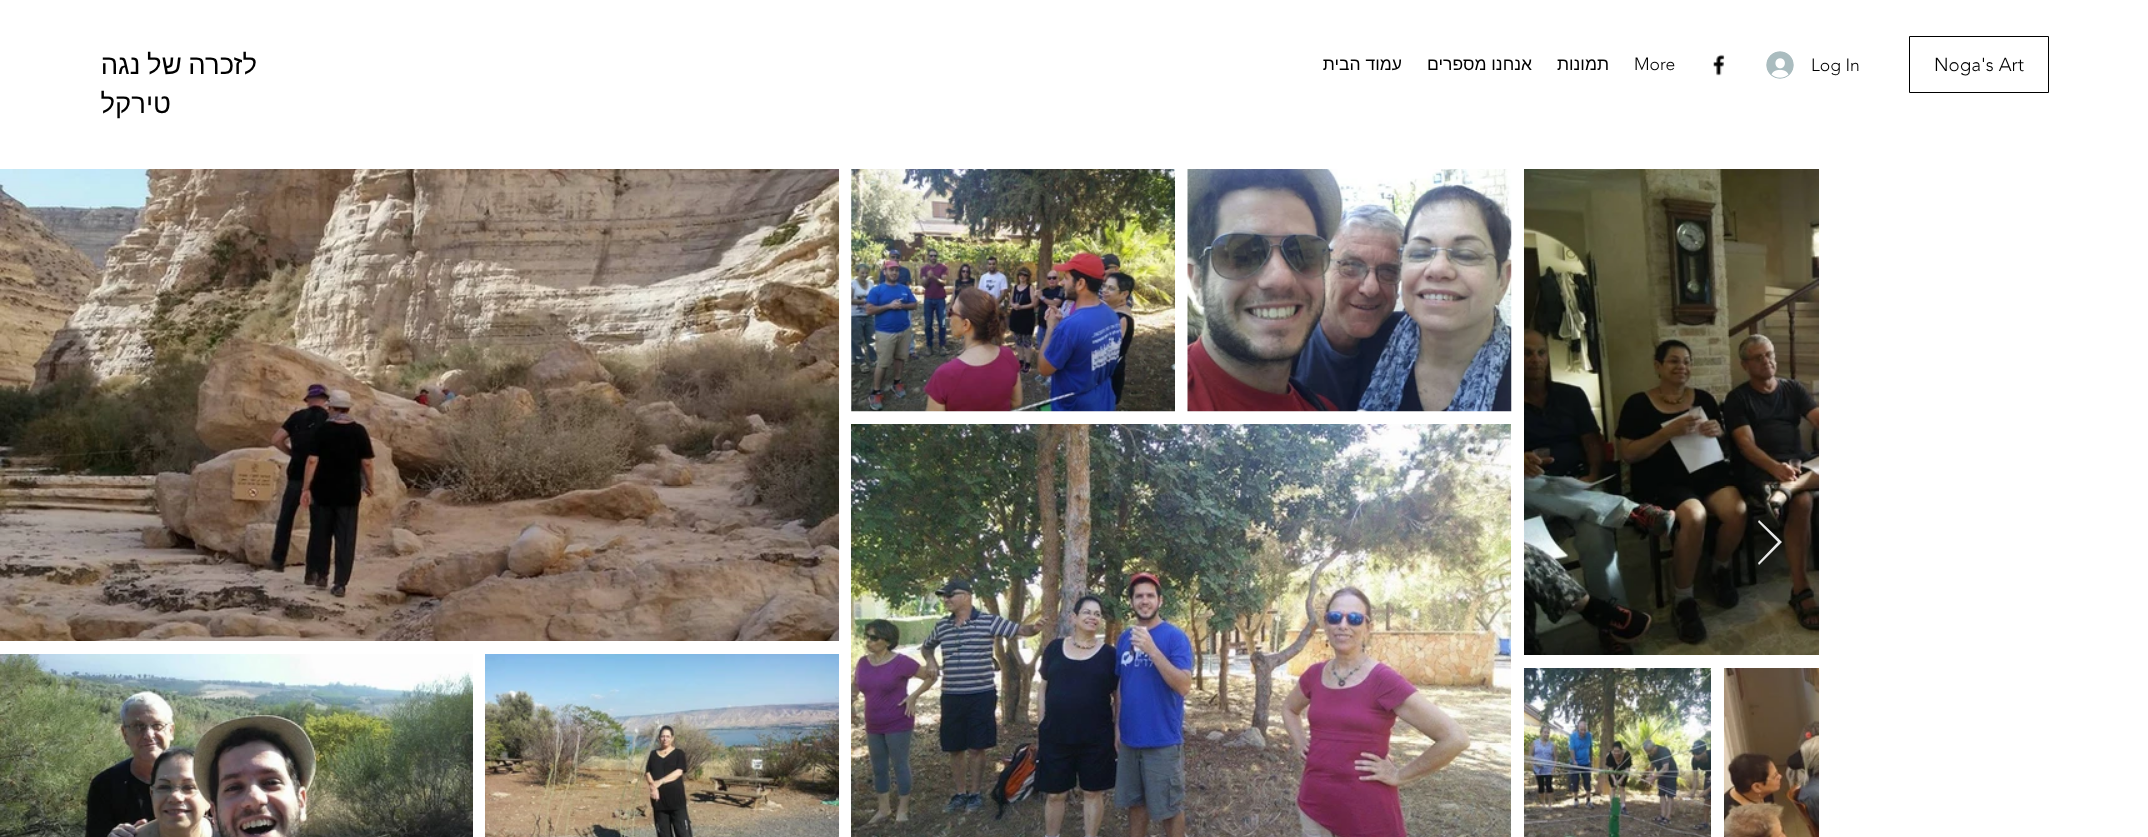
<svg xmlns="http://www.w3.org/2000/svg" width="2148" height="837">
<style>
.a{font:300 18.75px 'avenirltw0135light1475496';fill:#000}
.b{font:300 17.5px 'avenirltw0135light1475496';fill:#000}
.c{font:17.5px Liberation Sans;direction:rtl;fill:#000}
.d{font:27.5px Liberation Sans;direction:rtl;fill:#000}
</style>
<rect width="100%" height="100%" fill="#fff"/>
<path fill="none" stroke="#000" d="M1909.5 36.5h139v56H1909.5z"/>
<image href="1.png" x="1766" y="51" width="28" height="28"/>
<image href="2.png" x="1713" y="54" width="12" height="22"/>
<image href="3.png" x="1524" y="169" width="295" height="486"/>
<image href="4.png" x="1724" y="668" width="95" height="169"/>
<image href="5.png" x="1524" y="668" width="187" height="169"/>
<image href="6.png" x="1187" y="169" width="325" height="243"/>
<image href="7.png" x="851" y="169" width="324" height="243"/>
<image href="8.png" x="851" y="424" width="660" height="413"/>
<image href="9.png" x="0" y="169" width="839" height="472"/>
<image href="10.png" x="485" y="654" width="354" height="183"/>
<image href="11.png" x="0" y="654" width="473" height="183"/>
<path fill="#ffffffe6" d="M1758 522l1-2l23 22l-23 23l-1-2l20-21z"/>
<text class="a" x="1934" y="71">Noga's Art</text>
<text class="b" x="1811" y="71">Log In</text>
<text class="b" x="1634" y="70">More</text>
<text class="c" x="1609" y="70">תמונות</text>
<text class="c" x="1532" y="70">אנחנו מספרים</text>
<text class="c" x="1402" y="70">עמוד הבית</text>
<text class="d" x="257" y="74" word-spacing="-1">לזכרה של נגה</text>
<text class="d" x="171" y="113">טירקל</text>
</svg>
